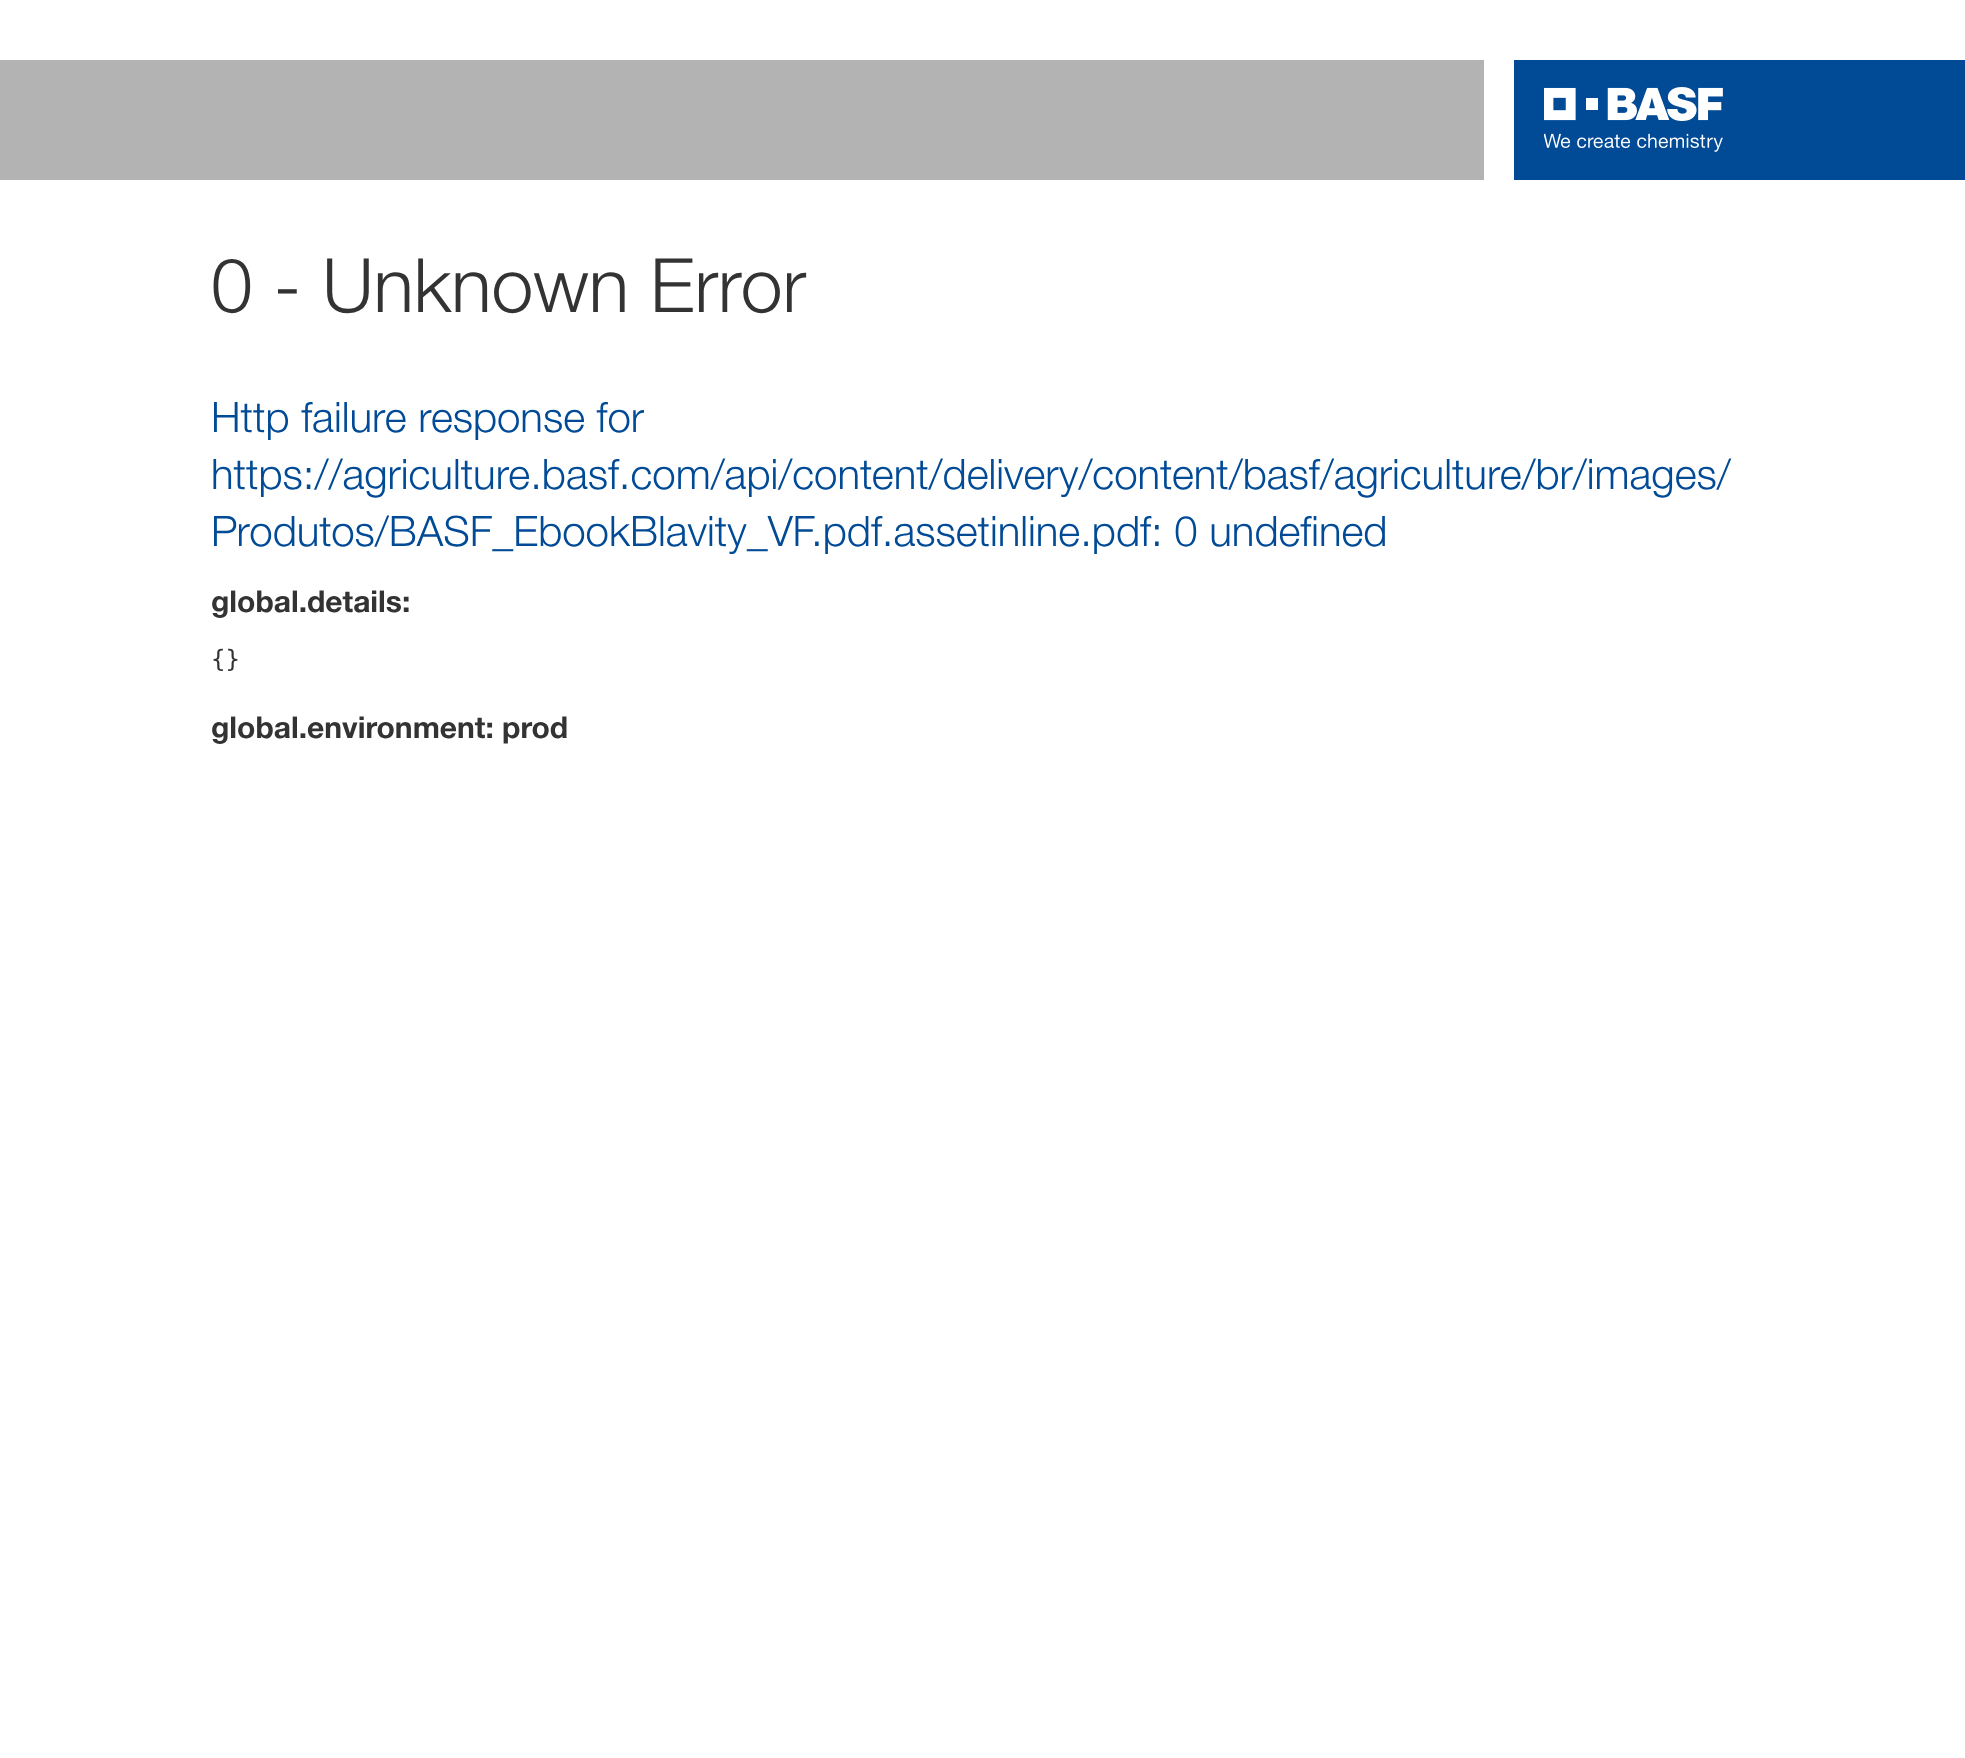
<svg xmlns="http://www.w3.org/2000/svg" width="1965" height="1758">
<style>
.a{font:300 75px 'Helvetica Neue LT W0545';fill:#333}
.b{font:300 42px 'Helvetica Neue LT W0545';fill:#004a96}
.c{font:bold 30px 'Helvetica Neue LT W0545';fill:#333}
.d{font:24px DejaVu Sans Mono;fill:#333}
</style>
<rect width="100%" height="100%" fill="#fff"/>
<path fill="#b3b3b3" d="M0 60h1484v120H0z"/>
<path fill="#004a96" d="M1514 60h451v120H1514z"/>
<image href="1.png" x="1544" y="87" width="179" height="65"/>
<text class="a" x="211" y="312">0 - Unknown Error</text>
<text class="b" x="211" y="432">Http failure response for</text>
<text class="b" x="211" y="489">https://agriculture.basf.com/api/content/delivery/content/basf/agriculture/br/images/</text>
<text class="b" x="211" y="546">Produtos/BASF_EbookBlavity_VF.pdf.assetinline.pdf: 0 undefined</text>
<text class="c" x="211" y="612">global.details:</text>
<text class="d" x="211" y="667">{}</text>
<text class="c" x="211" y="738">global.environment: prod</text>
</svg>
